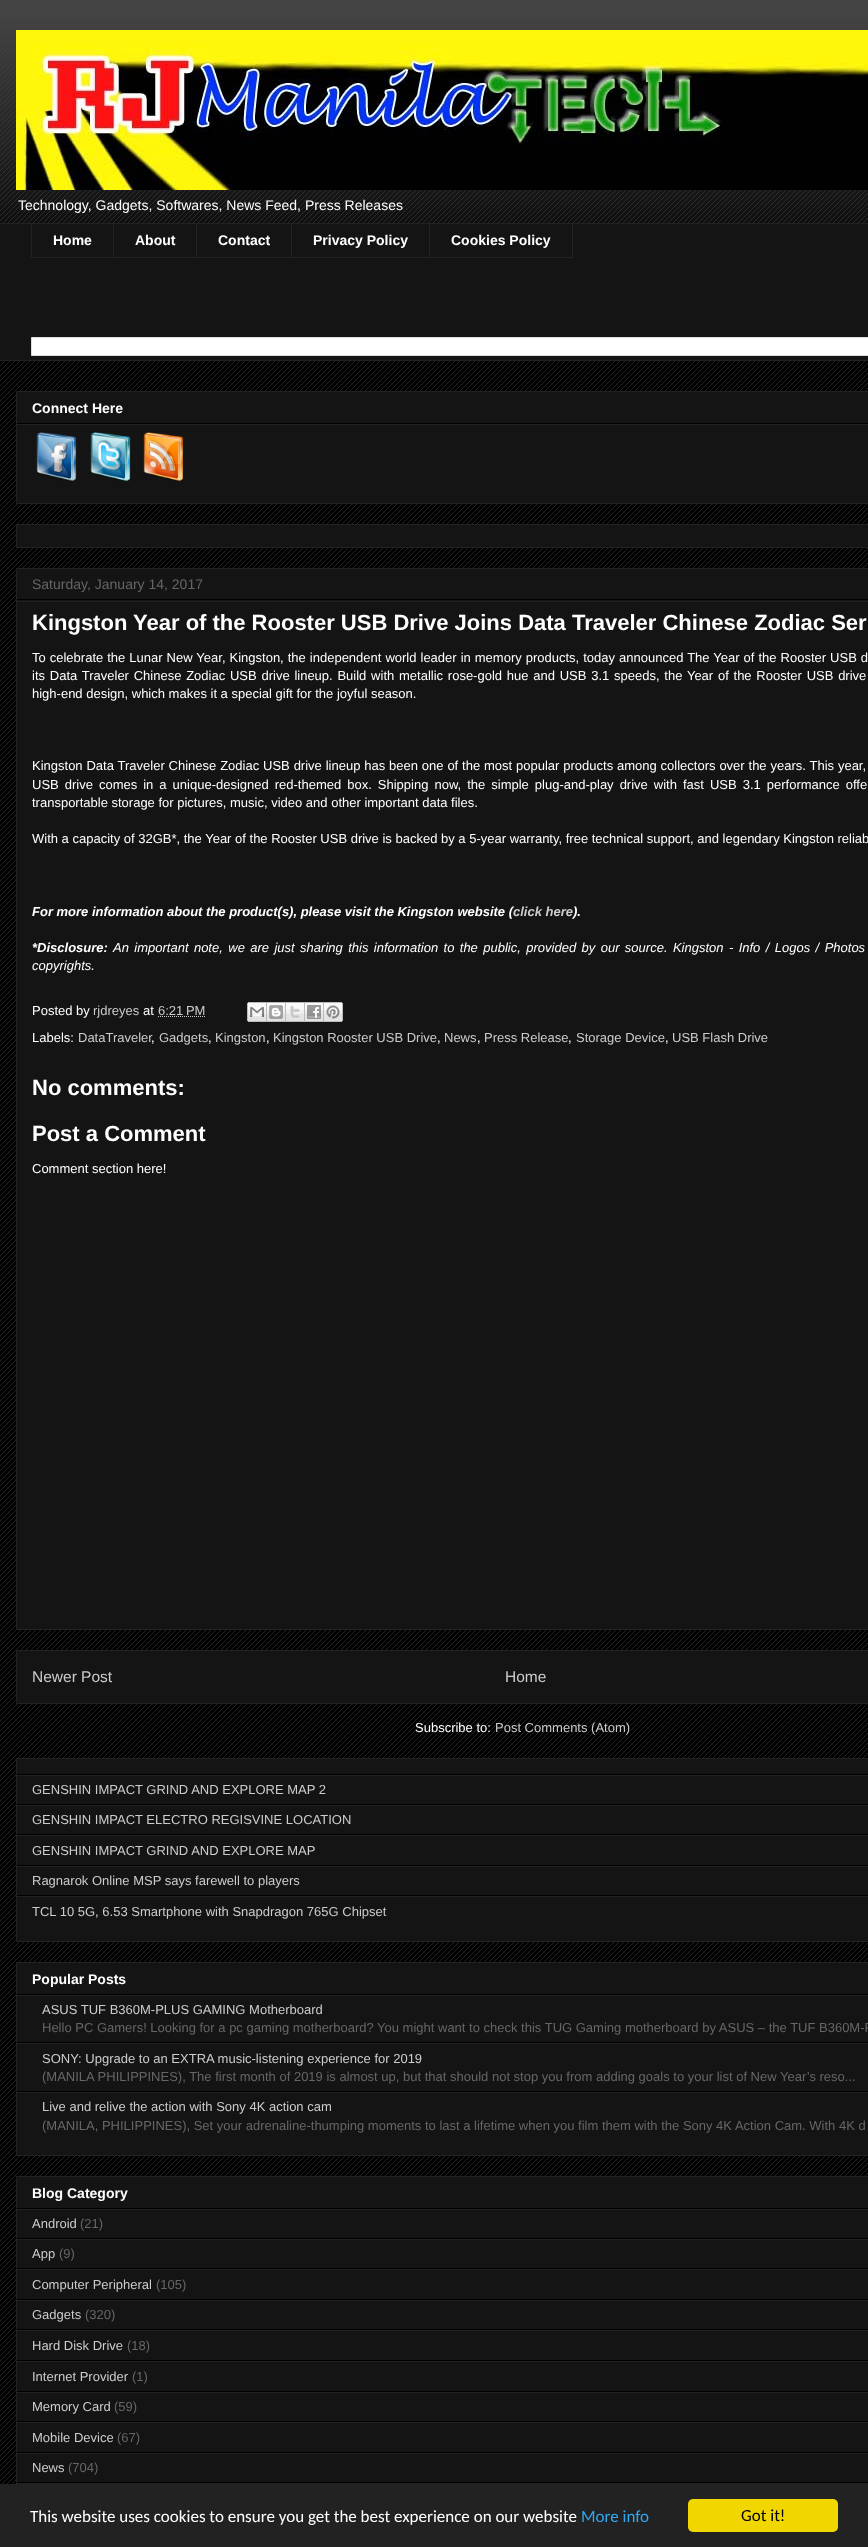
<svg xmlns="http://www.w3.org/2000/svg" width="868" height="2547">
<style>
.a{font:14px Liberation Sans;fill:#fff}
.b{font:bold 14px Liberation Sans;fill:#fff}
.c{font:14px Liberation Sans;fill:#666}
.d{font:bold 22px Liberation Sans;fill:#fff}
.e{font:13px Liberation Sans;fill:#fff}
.f{font:italic bold 13px Liberation Sans;fill:#fff}
.g{font:italic bold 13px Liberation Sans;fill:#ccc}
.h{font:italic 13px Liberation Sans;fill:#fff}
.i{font:13px Liberation Sans;fill:#ccc}
.j{font:15.5px Liberation Sans;fill:#ccc}
.k{font:13px Liberation Sans;fill:#666}
.l{font:17px Carlito;fill:#fff}
.m{font:17px Carlito;fill:#31a8f0}
.n{font:17px Carlito;fill:#000}
</style>
<rect width="100%" height="100%" fill="#000"/>
<image href="1.png" x="0" y="13" width="868" height="2471"/>
<image href="2.png" x="0" y="0" width="868" height="223"/>
<image href="3.png" x="16" y="30" width="852" height="160"/>
<path fill="#141414" d="M0 224h868v136H0z"/>
<path fill="#222" d="M0 223h868v1H0z"/>
<path fill="#222" d="M31 257h398v1H31z"/>
<path fill="#222" d="M31 223h1v35H31z"/>
<path fill="#222" d="M113 223h1v35H113z"/>
<path fill="#222" d="M196 223h1v35H196z"/>
<path fill="#222" d="M291 223h1v35H291z"/>
<path fill="none" stroke="#222" d="M429.5 223.5h143v34H429.5z"/>
<path fill="#fff" stroke="#ddd" d="M31.5 337.5h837v18H31.5z"/>
<path fill="#222" d="M0 360h868v1H0z"/>
<path fill="#141414" stroke="#222" d="M16.5 391.5h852v112H16.5z"/>
<path fill="#000" d="M17 423h851v1H17z"/>
<path fill="#222" d="M17 424h851v1H17z"/>
<image href="4.png" x="36" y="432" width="41" height="49"/>
<image href="5.png" x="90" y="432" width="41" height="50"/>
<image href="6.png" x="143" y="432" width="41" height="50"/>
<path fill="#141414" stroke="#222" d="M16.5 524.5h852v23H16.5z"/>
<path fill="#141414" stroke="#222" d="M16.5 568.5h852v1061H16.5z"/>
<path fill="#000" d="M17 599h851v1H17z"/>
<path fill="#222" d="M17 601h851v1H17z"/>
<path fill="none" stroke="#ccc" stroke-dasharray="1 1" d="M158 1016.5h47"/>
<image href="7.png" x="247" y="1002" width="20" height="20"/>
<image href="8.png" x="267" y="1002" width="19" height="20"/>
<image href="9.png" x="286" y="1002" width="19" height="20"/>
<image href="10.png" x="305" y="1002" width="19" height="20"/>
<image href="11.png" x="324" y="1002" width="19" height="20"/>
<path fill="#141414" stroke="#222" d="M16.5 1650.5h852v53H16.5z"/>
<path fill="#141414" stroke="#222" d="M16.5 1758.5h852v183H16.5z"/>
<path fill="#000" d="M17 1774h851v1H17z"/>
<path fill="#222" d="M17 1775h851v1H17z"/>
<path fill="#000" d="M17 1804h851v1H17z"/>
<path fill="#222" d="M17 1805h851v1H17z"/>
<path fill="#000" d="M17 1834h851v1H17z"/>
<path fill="#222" d="M17 1835h851v1H17z"/>
<path fill="#000" d="M17 1865h851v1H17z"/>
<path fill="#222" d="M17 1866h851v1H17z"/>
<path fill="#000" d="M17 1895h851v1H17z"/>
<path fill="#222" d="M17 1896h851v1H17z"/>
<path fill="#141414" stroke="#222" d="M16.5 1962.5h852v193H16.5z"/>
<path fill="#000" d="M17 1994h851v1H17z"/>
<path fill="#222" d="M17 1995h851v1H17z"/>
<path fill="#000" d="M17 2042h851v1H17z"/>
<path fill="#222" d="M17 2043h851v1H17z"/>
<path fill="#000" d="M17 2091h851v1H17z"/>
<path fill="#222" d="M17 2092h851v1H17z"/>
<path fill="#141414" d="M17 2177h851v305H17z"/>
<path fill="none" stroke="#222" d="M16.5 2176.5h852v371H16.5z"/>
<path fill="#000" d="M17 2208h851v1H17z"/>
<path fill="#222" d="M17 2209h851v1H17z"/>
<path fill="#000" d="M17 2238h851v1H17z"/>
<path fill="#222" d="M17 2239h851v1H17z"/>
<path fill="#000" d="M17 2268h851v1H17z"/>
<path fill="#222" d="M17 2269h851v1H17z"/>
<path fill="#000" d="M17 2299h851v1H17z"/>
<path fill="#222" d="M17 2300h851v1H17z"/>
<path fill="#000" d="M17 2329h851v1H17z"/>
<path fill="#222" d="M17 2330h851v1H17z"/>
<path fill="#000" d="M17 2360h851v1H17z"/>
<path fill="#222" d="M17 2361h851v1H17z"/>
<path fill="#000" d="M17 2391h851v1H17z"/>
<path fill="#222" d="M17 2392h851v1H17z"/>
<path fill="#000" d="M17 2421h851v1H17z"/>
<path fill="#222" d="M17 2422h851v1H17z"/>
<path fill="#000" d="M17 2452h851v1H17z"/>
<path fill="#222" d="M17 2453h851v1H17z"/>
<path fill="#000" d="M17 2482h851v1H17z"/>
<path fill="#222" d="M17 2483h851v1H17z"/>
<path fill="#222" d="M0 2484h868v63H0z"/>
<rect fill="#f1d600" x="688" y="2499" width="150" height="33" rx="5"/>
<text class="a" x="18" y="210">Technology, Gadgets, Softwares, News Feed, Press Releases</text>
<text class="b" x="53" y="245">Home</text>
<text class="b" x="135" y="245">About</text>
<text class="b" x="218" y="245">Contact</text>
<text class="b" x="313" y="245">Privacy Policy</text>
<text class="b" x="451" y="245">Cookies Policy</text>
<text class="b" x="32" y="413">Connect Here</text>
<text class="c" x="32" y="589">Saturday, January 14, 2017</text>
<text class="d" x="32" y="630">Kingston Year of the Rooster USB Drive Joins Data Traveler Chinese Zodiac Ser</text>
<text class="e" x="32" y="662" word-spacing="0.4">To celebrate the Lunar New Year, Kingston, the independent world leader in memory products, today announced The Year of the Rooster USB d</text>
<text class="e" x="32" y="680" word-spacing="1.15">its Data Traveler Chinese Zodiac USB drive lineup. Build with metallic rose-gold hue and USB 3.1 speeds, the Year of the Rooster USB drive</text>
<text class="e" x="32" y="698">high-end design, which makes it a special gift for the joyful season.</text>
<text class="e" x="32" y="770" word-spacing="0.25">Kingston Data Traveler Chinese Zodiac USB drive lineup has been one of the most popular products among collectors over the years. This year,</text>
<text class="e" x="32" y="789" word-spacing="2.4">USB drive comes in a unique-designed red-themed box. Shipping now, the simple plug-and-play drive with fast USB 3.1 performance offe</text>
<text class="e" x="32" y="807">transportable storage for pictures, music, video and other important data files.</text>
<text class="e" x="32" y="843">With a capacity of 32GB*, the Year of the Rooster USB drive is backed by a 5-year warranty, free technical support, and legendary Kingston reliab</text>
<text class="f" x="32" y="916">For more information about the product(s), please visit the Kingston website (</text>
<text class="g" x="513" y="916">click here</text>
<text class="f" x="573" y="916">).</text>
<text class="f" x="32" y="952">*Disclosure:</text>
<text class="h" x="113" y="952" word-spacing="1.8">An important note, we are just sharing this information to the public, provided by our source. Kingston - Info / Logos / Photos</text>
<text class="h" x="32" y="970">copyrights.</text>
<text class="e" x="32" y="1015">Posted by</text>
<text class="i" x="93" y="1015">rjdreyes</text>
<text class="e" x="143" y="1015">at</text>
<text class="i" x="158" y="1015">6:21 PM</text>
<text class="e" x="32" y="1042">Labels:</text>
<text class="i" x="78" y="1042">DataTraveler</text>
<text class="e" x="151" y="1042">,</text>
<text class="i" x="159" y="1042">Gadgets</text>
<text class="e" x="208" y="1042">,</text>
<text class="i" x="215" y="1042">Kingston</text>
<text class="e" x="266" y="1042">,</text>
<text class="i" x="273" y="1042">Kingston Rooster USB Drive</text>
<text class="e" x="437" y="1042">,</text>
<text class="i" x="444" y="1042">News</text>
<text class="e" x="477" y="1042">,</text>
<text class="i" x="484" y="1042">Press Release</text>
<text class="e" x="568" y="1042">,</text>
<text class="i" x="576" y="1042">Storage Device</text>
<text class="e" x="665" y="1042">,</text>
<text class="i" x="672" y="1042">USB Flash Drive</text>
<text class="d" x="32" y="1095">No comments:</text>
<text class="d" x="32" y="1141">Post a Comment</text>
<text class="e" x="32" y="1173">Comment section here!</text>
<text class="j" x="32" y="1682">Newer Post</text>
<text class="j" x="505" y="1682">Home</text>
<text class="e" x="415" y="1732">Subscribe to:</text>
<text class="i" x="495" y="1732">Post Comments (Atom)</text>
<text class="i" x="32" y="1794">GENSHIN IMPACT GRIND AND EXPLORE MAP 2</text>
<text class="i" x="32" y="1824">GENSHIN IMPACT ELECTRO REGISVINE LOCATION</text>
<text class="i" x="32" y="1855">GENSHIN IMPACT GRIND AND EXPLORE MAP</text>
<text class="i" x="32" y="1885">Ragnarok Online MSP says farewell to players</text>
<text class="i" x="32" y="1916">TCL 10 5G, 6.53 Smartphone with Snapdragon 765G Chipset</text>
<text class="b" x="32" y="1984">Popular Posts</text>
<text class="i" x="42" y="2014">ASUS TUF B360M-PLUS GAMING Motherboard</text>
<text class="k" x="42" y="2032">Hello PC Gamers! Looking for a pc gaming motherboard? You might want to check this TUG Gaming motherboard by ASUS – the TUF B360M-P</text>
<text class="i" x="42" y="2063">SONY: Upgrade to an EXTRA music-listening experience for 2019</text>
<text class="k" x="42" y="2081">(MANILA PHILIPPINES), The first month of 2019 is almost up, but that should not stop you from adding goals to your list of New Year’s reso...</text>
<text class="i" x="42" y="2111">Live and relive the action with Sony 4K action cam</text>
<text class="k" x="42" y="2130">(MANILA, PHILIPPINES), Set your adrenaline-thumping moments to last a lifetime when you film them with the Sony 4K Action Cam. With 4K d</text>
<text class="b" x="32" y="2198">Blog Category</text>
<text class="i" x="32" y="2228">Android</text>
<text class="k" x="80" y="2228">(21)</text>
<text class="i" x="32" y="2258">App</text>
<text class="k" x="59" y="2258">(9)</text>
<text class="i" x="32" y="2289">Computer Peripheral</text>
<text class="k" x="156" y="2289">(105)</text>
<text class="i" x="32" y="2319">Gadgets</text>
<text class="k" x="85" y="2319">(320)</text>
<text class="i" x="32" y="2350">Hard Disk Drive</text>
<text class="k" x="127" y="2350">(18)</text>
<text class="i" x="32" y="2381">Internet Provider</text>
<text class="k" x="132" y="2381">(1)</text>
<text class="i" x="32" y="2411">Memory Card</text>
<text class="k" x="114" y="2411">(59)</text>
<text class="i" x="32" y="2442">Mobile Device</text>
<text class="k" x="117" y="2442">(67)</text>
<text class="i" x="32" y="2472">News</text>
<text class="k" x="68" y="2472">(704)</text>
<text class="l" x="30" y="2522">This website uses cookies to ensure you get the best experience on our website</text>
<text class="m" x="581" y="2522">More info</text>
<text class="n" x="741" y="2521">Got it!</text>
</svg>
